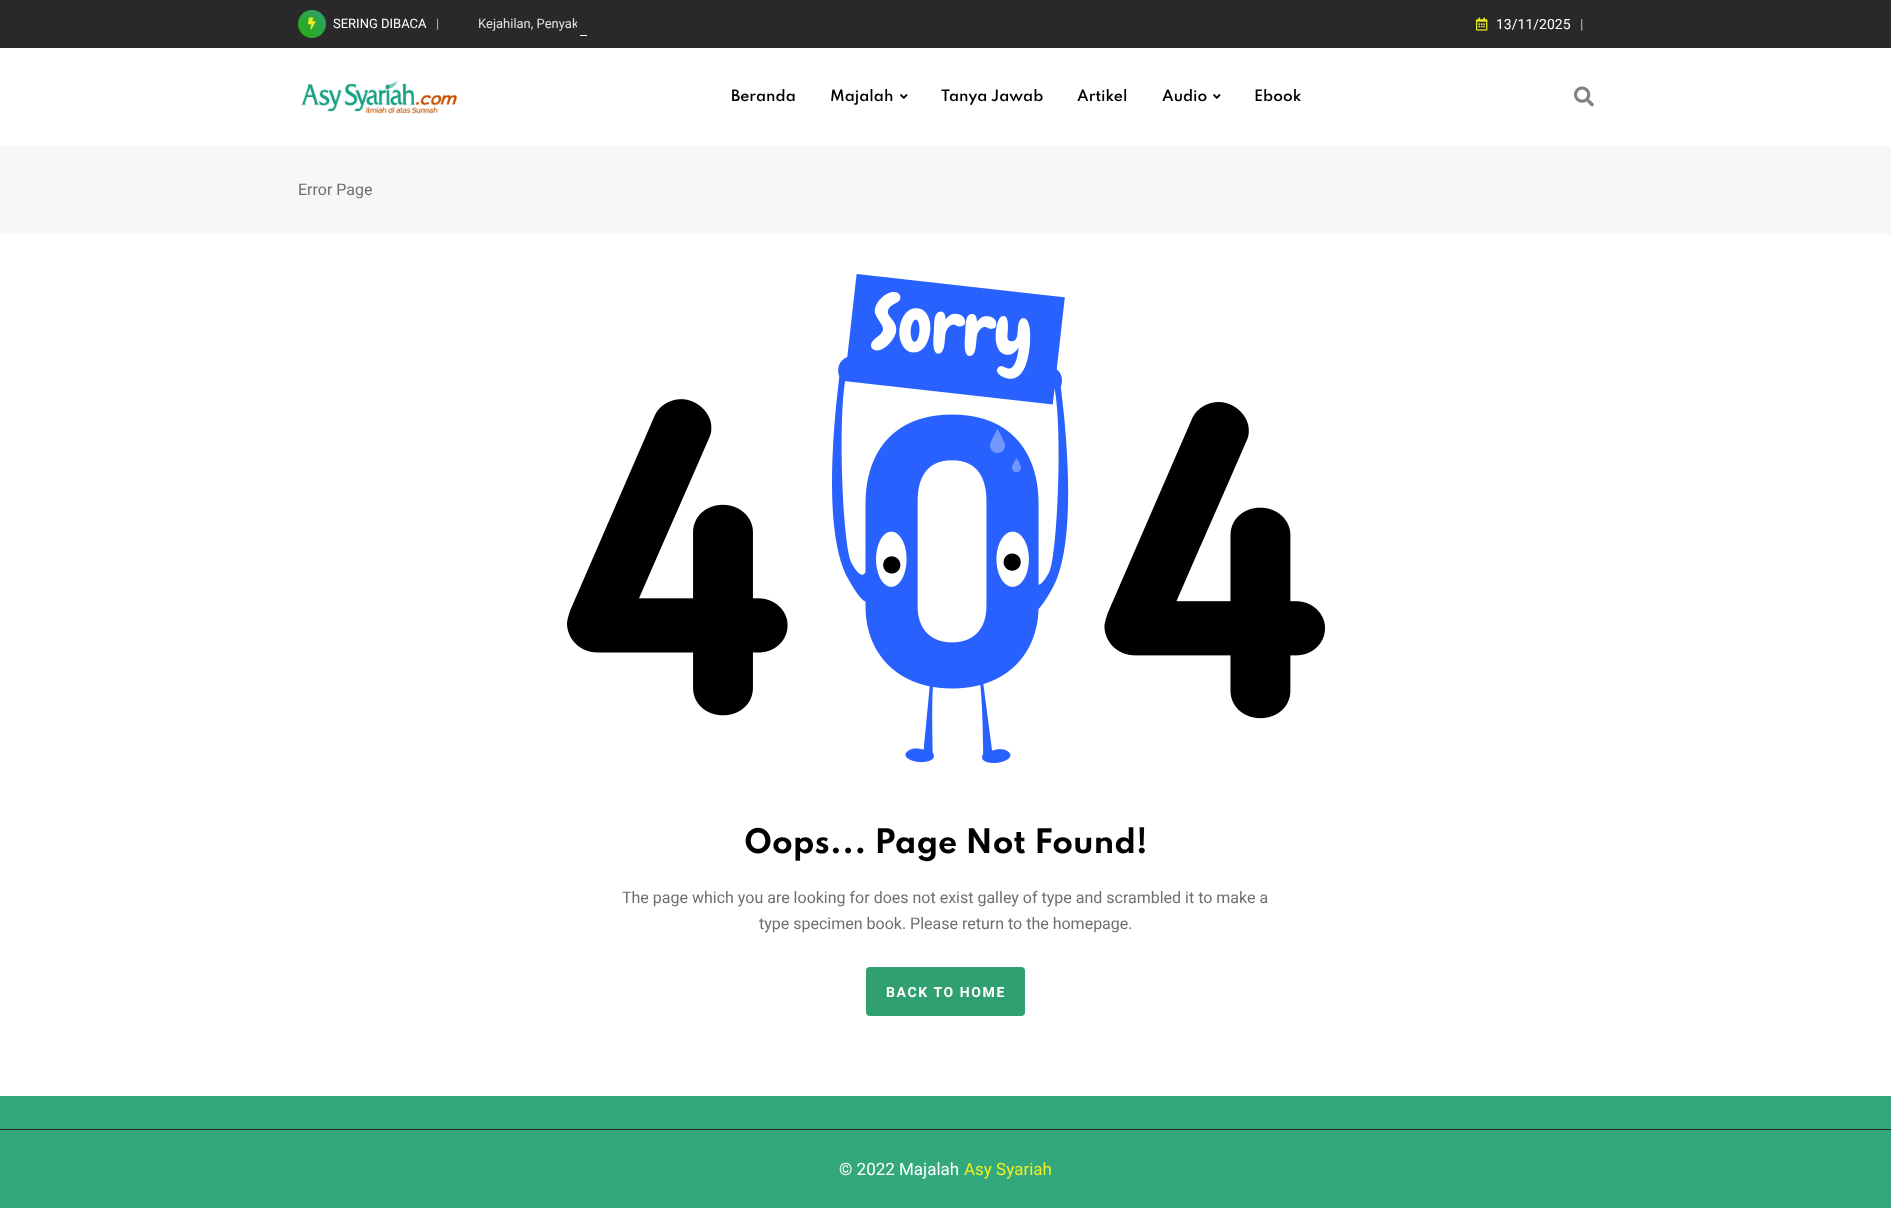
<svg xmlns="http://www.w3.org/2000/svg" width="1891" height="1208">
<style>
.a{font:13px Roboto;fill:#fff}
.b{font:13px Roboto;fill:#bbb}
.c{font:13px Roboto;fill:#e0e0e0}
.d{font:14px Roboto;fill:#fff}
.e{font:14px Roboto;fill:#bbb}
.f{font:600 14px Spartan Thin;fill:#000}
.g{font:16px Roboto;fill:#6c6f72}
.h{font:bold 30px Spartan Thin;fill:#000}
.i{font:bold 14px Roboto;letter-spacing:1.6px;fill:#fff}
.j{font:17px Roboto;fill:#fff}
.k{font:17px Roboto;fill:#ee2}
</style>
<defs>
<linearGradient id="g1" gradientUnits="userSpaceOnUse" x1="298" y1="38" x2="326" y2="10"><stop offset="0" stop-color="#24ad0c"/><stop offset="1" stop-color="#31a070"/></linearGradient>
</defs>
<rect width="100%" height="100%" fill="#fff"/>
<path fill="#292929" d="M0 0h1891v48H0z"/>
<circle fill="url(#g1)" cx="312" cy="24" r="14"/>
<image href="1.png" x="308" y="17" width="8" height="13"/>
<path fill="#fff" d="M580 35h7v1H580z"/>
<image href="2.png" x="1476" y="17" width="12" height="14"/>
<image href="3.png" x="301" y="80" width="156" height="34"/>
<image href="4.png" x="900" y="94" width="8" height="5"/>
<image href="4.png" x="1213" y="94" width="8" height="5"/>
<image href="5.png" x="1574" y="86" width="20" height="21"/>
<path fill="#f7f7f7" d="M0 146h1891v88H0z"/>
<image href="6.png" x="567" y="274" width="758" height="489"/>
<rect fill="#31a070" x="866" y="967" width="159" height="49" rx="4"/>
<path fill="#34a87d" d="M0 1096h1891v112H0z"/>
<path fill="#252525" d="M0 1129h1891v1H0z"/>
<text class="a" x="333" y="28">SERING DIBACA</text>
<text class="b" x="436" y="28">|</text>
<text class="c" x="478" y="28">Kejahilan, Penyak</text>
<path fill="#292929" d="M577 21h2v7H577z"/>
<text class="d" x="1496" y="29">13/11/2025</text>
<text class="e" x="1580" y="29">|</text>
<text class="f" x="731" y="101">Beranda</text>
<text class="f" x="830" y="101">Majalah</text>
<text class="f" x="941" y="101">Tanya Jawab</text>
<text class="f" x="1077" y="101">Artikel</text>
<text class="f" x="1162" y="101">Audio</text>
<text class="f" x="1254" y="101">Ebook</text>
<text class="g" x="298" y="195">Error Page</text>
<text class="h" x="744" y="853">Oops... Page Not Found!</text>
<text class="g" x="622" y="903">The page which you are looking for does not exist galley of type and scrambled it to make a</text>
<text class="g" x="759" y="929">type specimen book. Please return to the homepage.</text>
<text class="i" x="886" y="997">BACK TO HOME</text>
<text class="j" x="839" y="1175">© 2022 Majalah</text>
<text class="k" x="964" y="1175">Asy Syariah</text>
</svg>
